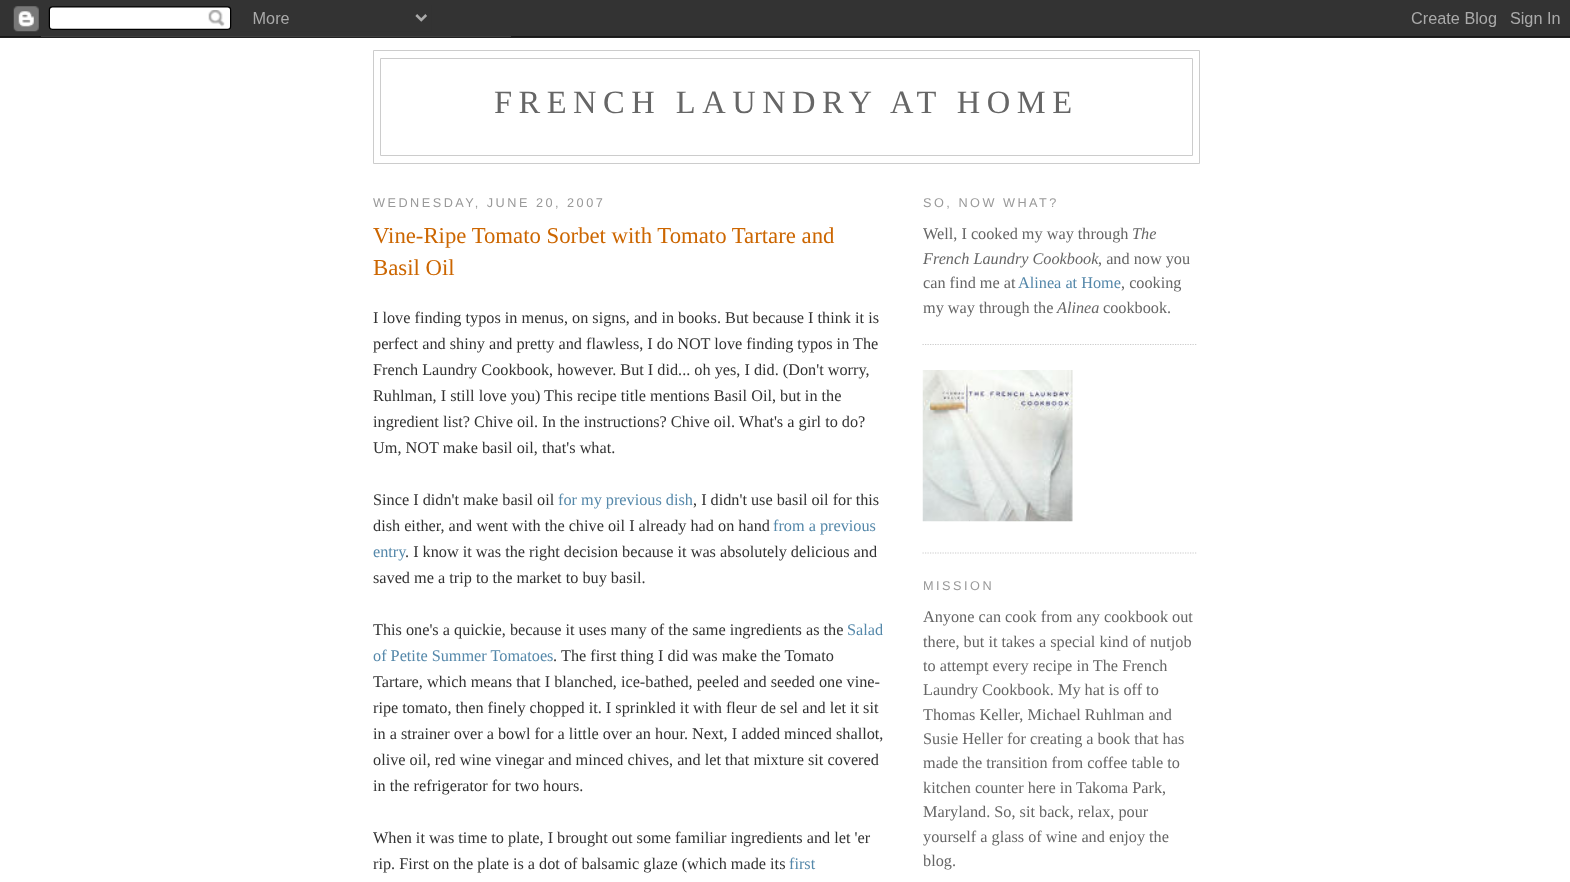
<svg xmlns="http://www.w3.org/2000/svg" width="1570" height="882">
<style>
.a{font:32.5px Liberation Serif;letter-spacing:6.5px;fill:#666}
.b{font:12.7px Liberation Sans;letter-spacing:2.5px;fill:#999}
.c{font:22.75px Liberation Serif;fill:#c60}
.d{font:16.25px Liberation Serif;fill:#333}
.e{font:16.25px Liberation Serif;fill:#58a}
.f{font:16.25px Liberation Serif;fill:#666}
.g{font:italic 16.25px Liberation Serif;fill:#666}
</style>
<defs>
<clipPath id="clip1"><path d="M373 176h512v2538H373z"/></clipPath>
<clipPath id="clip2"><path d="M923 176h275v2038H923z"/></clipPath>
</defs>
<rect width="100%" height="100%" fill="#fff"/>
<image href="1.png" x="0" y="0" width="1570" height="38"/>
<path fill="none" stroke="#ccc" d="M373.5 50.5h826v113H373.5z"/>
<path fill="none" stroke="#ccc" d="M380.5 58.5h812v97H380.5z"/>
<path fill="none" stroke="#ccc" stroke-width="1.2" stroke-dasharray="1.25 1.25" d="M922.5 344.5h275"/>
<path fill="none" stroke="#ccc" stroke-width="1.2" stroke-dasharray="1.25 1.25" d="M922.5 553h275"/>
<image href="2.png" x="922" y="370" width="151" height="152"/>
<text class="a" x="494" y="113">FRENCH LAUNDRY AT HOME</text>
<text class="b" x="373" y="207">WEDNESDAY, JUNE 20, 2007</text>
<text class="c" x="373" y="243">Vine-Ripe Tomato Sorbet with Tomato Tartare and</text>
<text class="c" x="373" y="275">Basil Oil</text>
<text class="d" x="373" y="323">I love finding typos in menus, on signs, and in books. But because I think it is</text>
<text class="d" x="373" y="349">perfect and shiny and pretty and flawless, I do NOT love finding typos in The</text>
<text class="d" x="373" y="375">French Laundry Cookbook, however. But I did... oh yes, I did. (Don't worry,</text>
<text class="d" x="373" y="401">Ruhlman, I still love you)</text>
<text class="d" x="544" y="401">This recipe title mentions Basil Oil, but in the</text>
<text class="d" x="373" y="427">ingredient list? Chive oil. In the instructions? Chive oil. What's a girl to do?</text>
<text class="d" x="373" y="453">Um, NOT make basil oil, that's what.</text>
<text class="d" x="373" y="505">Since I didn't make basil oil</text>
<text class="e" x="558" y="505">for my previous dish</text>
<text class="d" x="693" y="505">, I didn't use basil oil for this</text>
<text class="d" x="373" y="531">dish either, and went with the chive oil I already had on hand</text>
<text class="e" x="773" y="531">from a previous</text>
<text class="e" x="373" y="557">entry</text>
<text class="d" x="405" y="557">. I know it was the right decision because it was absolutely delicious and</text>
<text class="d" x="373" y="583">saved me a trip to the market to buy basil.</text>
<g clip-path="url(#clip1)">
<text class="d" x="373" y="635">This one's a quickie, because it uses many of the same ingredients as the</text>
</g>
<text class="e" x="847" y="635">Salad</text>
<text class="e" x="373" y="661">of Petite Summer Tomatoes</text>
<text class="d" x="553" y="661">.</text>
<text class="d" x="561" y="661">The first thing I did was make the Tomato</text>
<g clip-path="url(#clip1)">
<text class="d" x="373" y="687">Tartare, which means that I blanched, ice-bathed, peeled and seeded one vine-</text>
</g>
<text class="d" x="373" y="713">ripe tomato, then finely chopped it. I sprinkled it with fleur de sel and let it sit</text>
<text class="d" x="373" y="739">in a strainer over a bowl for a little over an hour. Next, I added minced shallot,</text>
<text class="d" x="373" y="765">olive oil, red wine vinegar and minced chives, and let that mixture sit covered</text>
<text class="d" x="373" y="791">in the refrigerator for two hours.</text>
<text class="d" x="373" y="843">When it was time to plate, I brought out some familiar ingredients and let 'er</text>
<text class="d" x="373" y="869">rip. First on the plate is a dot of balsamic glaze (which made its</text>
<text class="e" x="789" y="869">first</text>
<text class="b" x="923" y="207">SO, NOW WHAT?</text>
<text class="f" x="923" y="239">Well, I cooked my way through</text>
<text class="g" x="1132" y="239">The</text>
<text class="g" x="923" y="264">French Laundry Cookbook</text>
<text class="f" x="1098" y="264">, and now you</text>
<text class="f" x="923" y="288">can find me at</text>
<text class="e" x="1018" y="288">Alinea at Home</text>
<text class="f" x="1121" y="288">, cooking</text>
<text class="f" x="923" y="313">my way through the</text>
<text class="g" x="1057" y="313">Alinea</text>
<text class="f" x="1103" y="313">cookbook.</text>
<text class="b" x="923" y="590">MISSION</text>
<text class="f" x="923" y="622">Anyone can cook from any cookbook out</text>
<text class="f" x="923" y="647">there, but it takes a special kind of nutjob</text>
<text class="f" x="923" y="671">to attempt every recipe in The French</text>
<text class="f" x="923" y="695">Laundry Cookbook. My hat is off to</text>
<g clip-path="url(#clip2)">
<text class="f" x="923" y="720">Thomas Keller, Michael Ruhlman and</text>
</g>
<text class="f" x="923" y="744">Susie Heller for creating a book that has</text>
<text class="f" x="923" y="768">made the transition from coffee table to</text>
<text class="f" x="923" y="793">kitchen counter here in Takoma Park,</text>
<text class="f" x="923" y="817">Maryland. So, sit back, relax, pour</text>
<text class="f" x="923" y="842">yourself a glass of wine and enjoy the</text>
<text class="f" x="923" y="866">blog.</text>
</svg>
